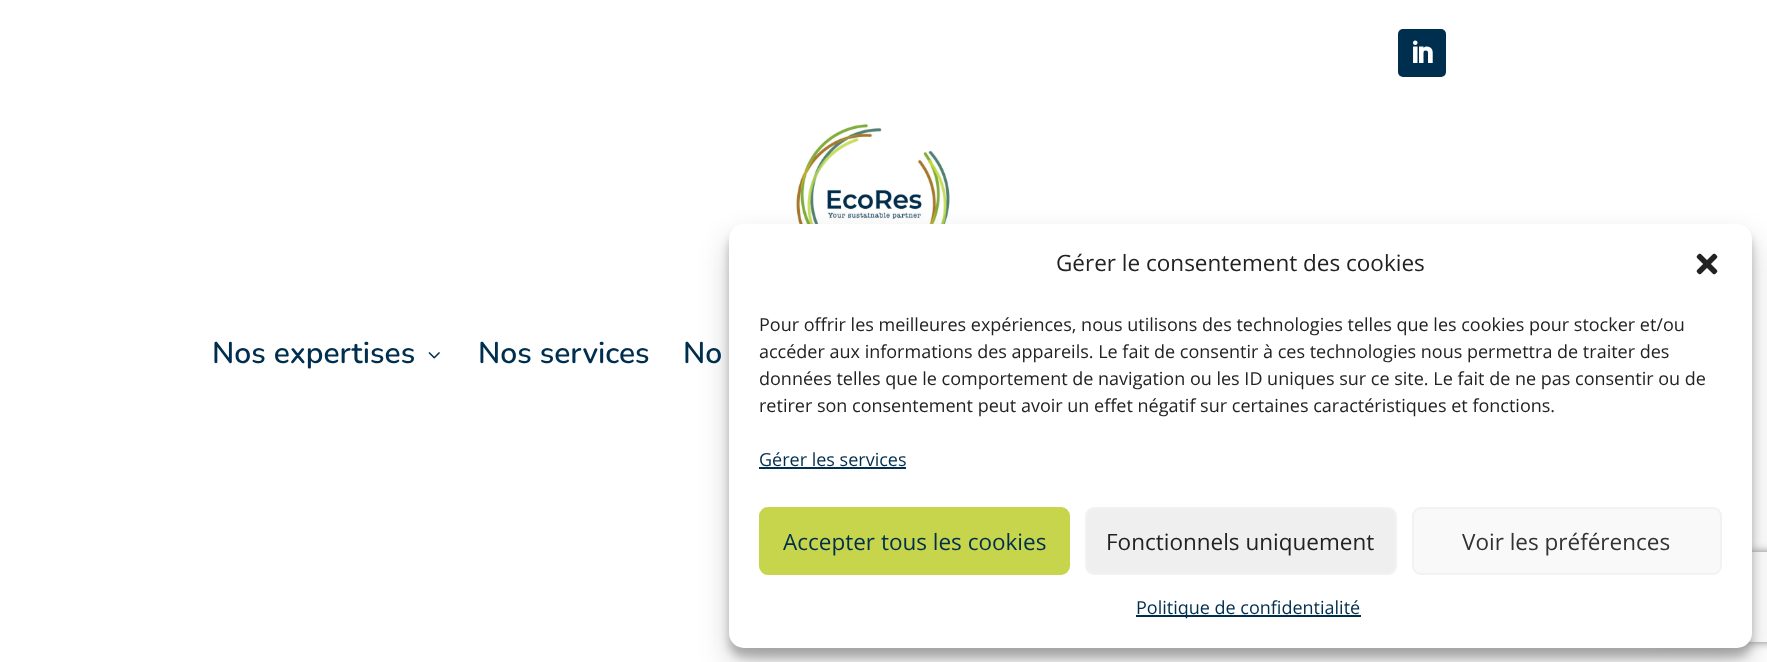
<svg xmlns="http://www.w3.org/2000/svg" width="1767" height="662">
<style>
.a{font:600 30px Nunito;fill:#002e4f}
.b{font:22.5px Open Sans;fill:#222}
.c{font:18px Open Sans;fill:#222}
.d{font:18px Open Sans;fill:#002e4f}
.e{font:22.5px Open Sans;fill:#002e4f}
.f{font:22.5px Open Sans;fill:#333}
</style>
<defs>
<clipPath id="clip1"><path d="M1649 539h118v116h-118zm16 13h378c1.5 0 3 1.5 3 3v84c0 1.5-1.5 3-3 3h-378c-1.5 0-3-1.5-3-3v-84c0-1.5 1.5-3 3-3z" clip-rule="evenodd"/></clipPath>
</defs>
<rect width="100%" height="100%" fill="#fff"/>
<rect fill="#002e4f" x="1398" y="29" width="48" height="48" rx="5"/>
<image href="1.png" x="1413" y="40" width="20" height="23"/>
<image href="2.png" x="795" y="124" width="155" height="100"/>
<image href="3.png" x="428" y="352" width="12" height="7"/>
<rect fill="#0000003b" filter="blur(4.5px)" x="729" y="233" width="1023" height="424" rx="15"/>
<rect fill="#00000030" filter="blur(15px)" x="729" y="239" width="1023" height="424" rx="15"/>
<g clip-path="url(#clip1)">
<rect fill="#808080" filter="blur(4px)" x="1662" y="552" width="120" height="90" rx="3"/>
</g>
<rect fill="#fff" x="729" y="224" width="1023" height="424" rx="15"/>
<image href="4.png" x="1696" y="253" width="22" height="22"/>
<path fill="#002e4f" d="M759 467h147v2H759z"/>
<rect fill="#c6d54c" stroke="#c6d54c" stroke-width="2" x="760" y="508" width="309" height="66" rx="8"/>
<rect fill="#efefef" stroke="#f2f2f2" stroke-width="2" x="1086" y="508" width="310" height="66" rx="8"/>
<rect fill="#f9f9f9" stroke="#f2f2f2" stroke-width="2" x="1413" y="508" width="308" height="66" rx="8"/>
<path fill="#002e4f" d="M1136 615h225v2H1136z"/>
<text class="a" x="212" y="363">Nos expertises</text>
<text class="a" x="478" y="363">Nos services</text>
<text class="a" x="683" y="363">No</text>
<text class="b" x="1056" y="271">Gérer le consentement des cookies</text>
<text class="c" x="759" y="331">Pour offrir les meilleures expériences, nous utilisons des technologies telles que les cookies pour stocker et/ou</text>
<text class="c" x="759" y="358">accéder aux informations des appareils. Le fait de consentir à ces technologies nous permettra de traiter des</text>
<text class="c" x="759" y="385">données telles que le comportement de navigation ou les ID uniques sur ce site. Le fait de ne pas consentir ou de</text>
<text class="c" x="759" y="412">retirer son consentement peut avoir un effet négatif sur certaines caractéristiques et fonctions.</text>
<text class="d" x="759" y="466">Gérer les services</text>
<text class="e" x="783" y="550">Accepter tous les cookies</text>
<text class="b" x="1106" y="550">Fonctionnels uniquement</text>
<text class="f" x="1462" y="550">Voir les préférences</text>
<text class="d" x="1136" y="614">Politique de confidentialité</text>
</svg>
